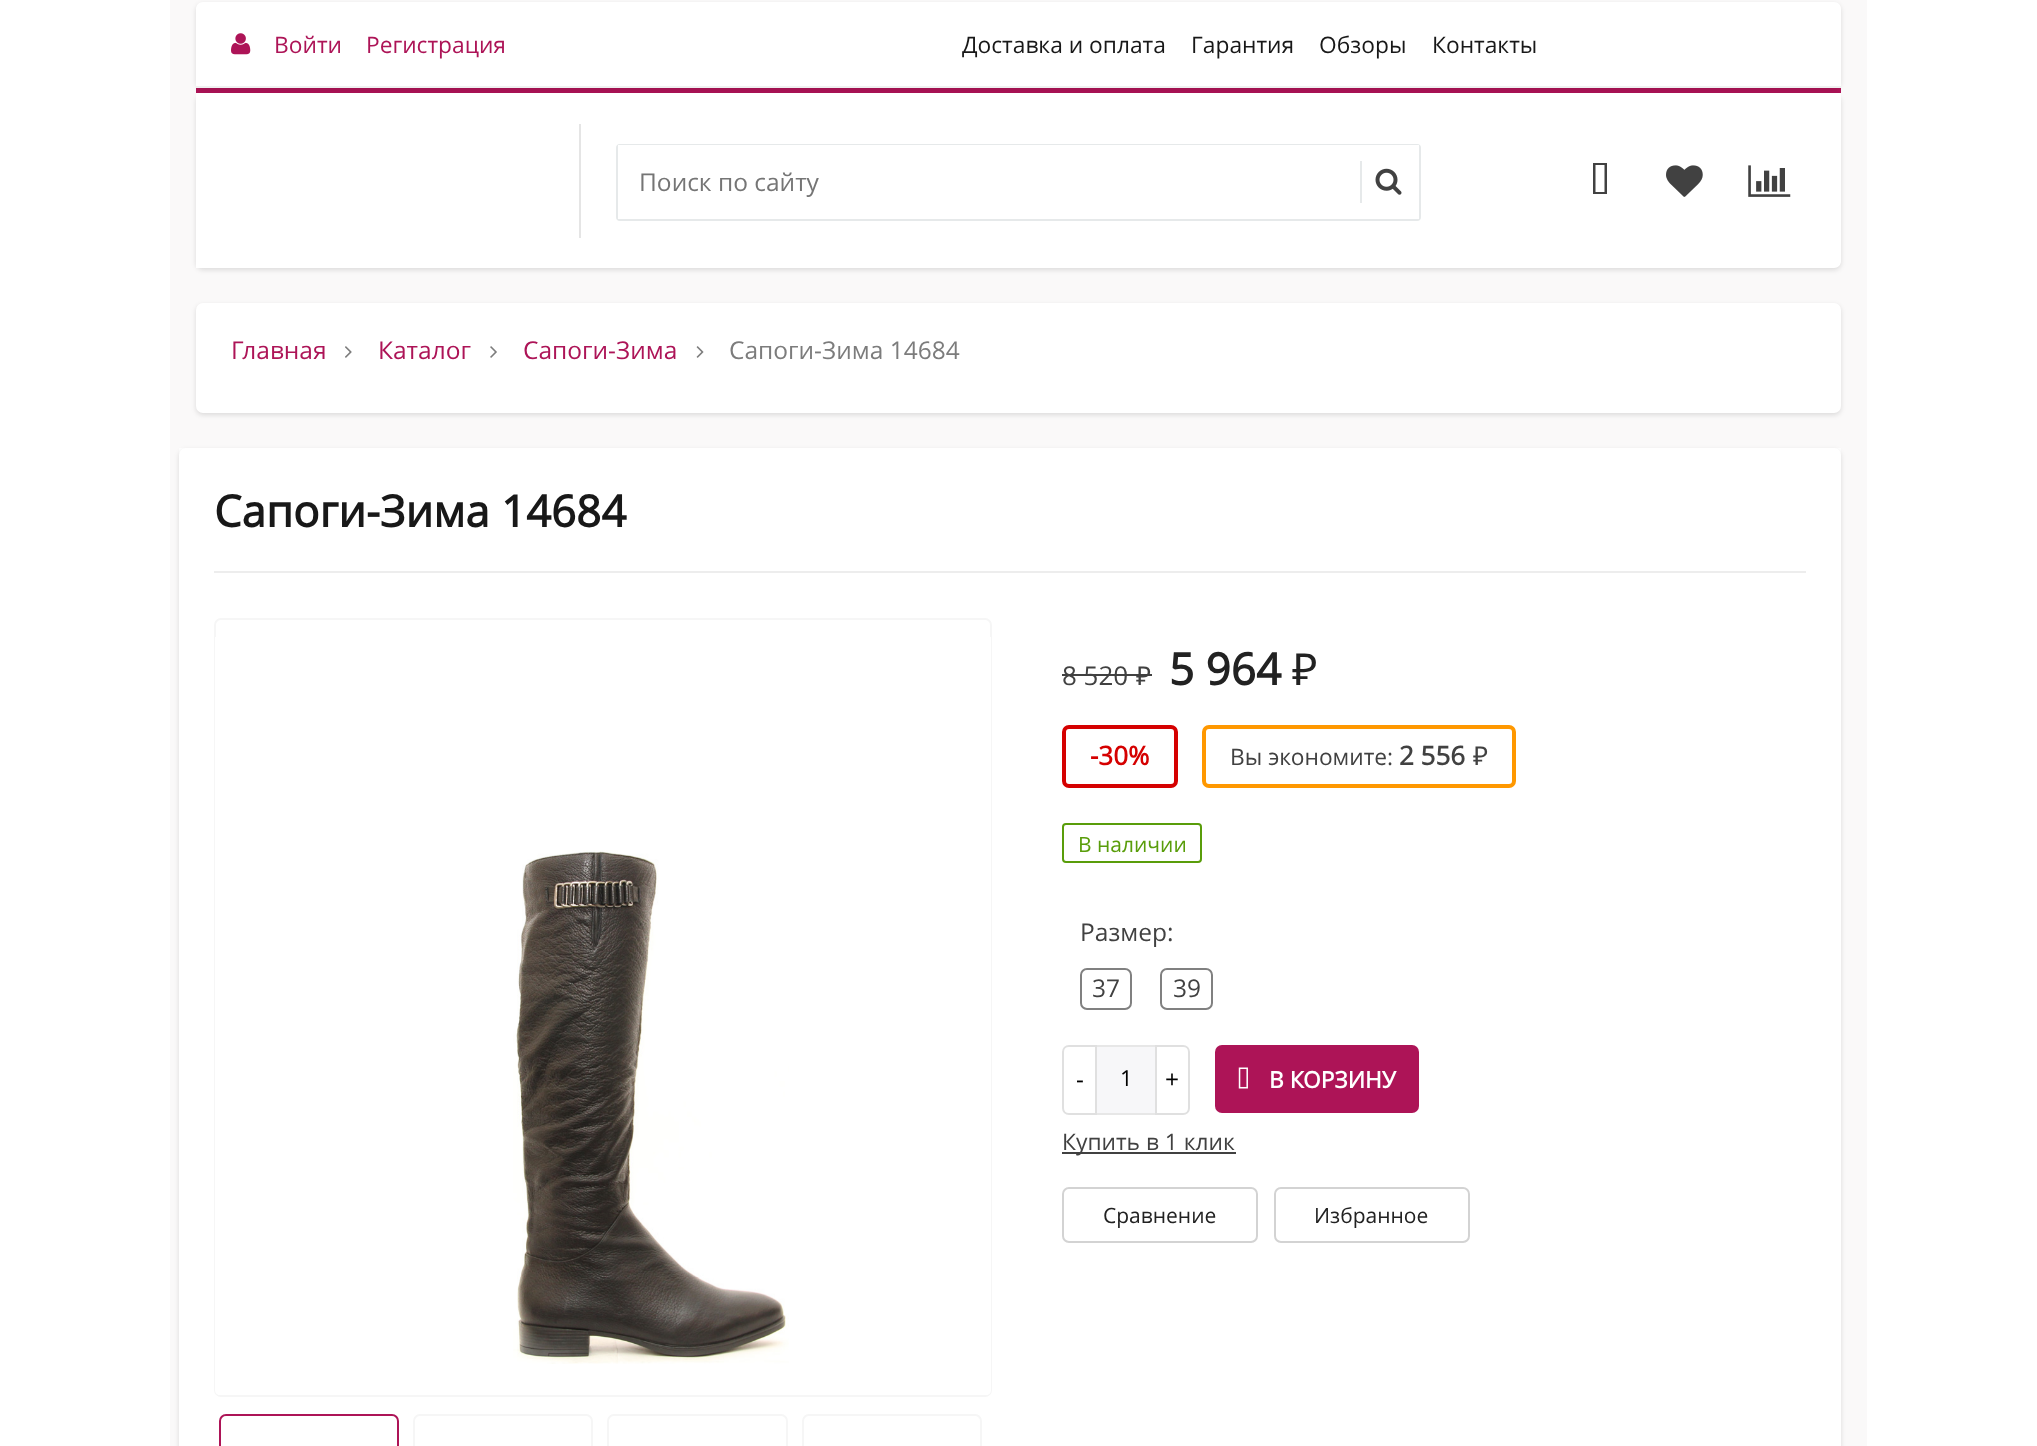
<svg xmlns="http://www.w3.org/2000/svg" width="2037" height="1446">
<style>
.a{font:22.75px Open Sans;fill:#ad1457}
.b{font:22.75px Open Sans;fill:#181818}
.c{font:24.5px Open Sans;fill:#757575}
.d{font:24.5px Open Sans;fill:#ad1457}
.e{font:24.5px Open Sans;fill:#7c7c7c}
.f{font:bold 43.75px Open Sans;fill:#181818}
.g{font:26px Open Sans;fill:#414141}
.h{font:26px Noto Sans;fill:#414141}
.i{font:bold 44px Open Sans;fill:#222}
.j{font:44px Noto Sans;fill:#222}
.k{font:bold 26px Open Sans;fill:#d50000}
.l{font:22.75px Open Sans;fill:#414141}
.m{font:bold 26px Open Sans;fill:#414141}
.n{font:21px Open Sans;fill:#599d0a}
.o{font:24.5px Open Sans;fill:#414141}
.p{font:24.5px Open Sans;fill:#000}
.q{font:22px Open Sans;fill:#000}
.r{font:bold 22.75px Open Sans;fill:#fff}
.s{font:21px Open Sans;fill:#222}
</style>
<rect width="100%" height="100%" fill="#fff"/>
<path fill="#faf9f9" d="M170 0h1697v1446H170z"/>
<path fill="#ad1457" d="M196 88h1645v5H196z"/>
<rect fill="#0000001f" filter="blur(2.5px)" x="196" y="4" width="1645" height="85" rx="7"/>
<path fill="#fff" d="M203 2h1631c4 0 7 3 7 7v79h-1645v-79c0-4 3-7 7-7z"/>
<path fill="#f0f0f0" d="M196 86h1645v2H196z"/>
<image href="1.png" x="231" y="33" width="20" height="22"/>
<rect fill="#0000001f" filter="blur(2.5px)" x="196" y="95" width="1645" height="175" rx="7"/>
<path fill="#fff" d="M196 93h1645v168c0 4-3 7-7 7h-1638z"/>
<path fill="#e5e5e5" d="M579 124h2v114H579z"/>
<rect fill="none" stroke="#e6e9ea" stroke-width="2" x="617" y="145" width="803" height="75" rx="3"/>
<path fill="#fff" d="M618 145h801v74H618z"/>
<path fill="#e6e9ea" d="M1360 161h2v42H1360z"/>
<image href="2.png" x="1375" y="168" width="27" height="27"/>
<path fill="#414141" d="M1595.5 192h9v-27h-9zm-2.5 2v-31h14v31z"/>
<image href="3.png" x="1666" y="165" width="37" height="32"/>
<image href="4.png" x="1748" y="165" width="43" height="32"/>
<rect fill="#0000001f" filter="blur(2.5px)" x="196" y="305" width="1645" height="110" rx="7"/>
<rect fill="#fff" x="196" y="303" width="1645" height="110" rx="7"/>
<image href="5.png" x="345" y="346" width="7" height="12"/>
<image href="6.png" x="490" y="346" width="7" height="12"/>
<image href="7.png" x="696" y="346" width="8" height="12"/>
<path fill="#fff" d="M179 448h1662v7H179z"/>
<rect fill="#0000001f" filter="blur(2.5px)" x="179" y="450" width="1662" height="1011" rx="7"/>
<rect fill="#fff" x="179" y="448" width="1662" height="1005" rx="7"/>
<path fill="#ededed" d="M214 571h1592v2H214z"/>
<rect fill="none" stroke="#f6f6f6" stroke-width="2" x="215" y="619" width="776" height="777" rx="6"/>
<path fill="#fff" d="M215 637h776v753c0 3-2 5-5 5h-766c-3 0-5-2-5-5z"/>
<image href="8.png" x="513" y="850" width="276" height="514"/>
<rect fill="none" stroke="#ad1457" stroke-width="2" x="220" y="1415" width="178" height="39" rx="6"/>
<rect fill="none" stroke="#f6f6f6" stroke-width="2" x="414" y="1415" width="178" height="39" rx="6"/>
<rect fill="none" stroke="#f6f6f6" stroke-width="2" x="608" y="1415" width="179" height="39" rx="6"/>
<rect fill="none" stroke="#f6f6f6" stroke-width="2" x="803" y="1415" width="178" height="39" rx="6"/>
<path fill="#414141" d="M1062 674h90v2H1062z"/>
<rect fill="none" stroke="#d50000" stroke-width="4" x="1064" y="727" width="112" height="59" rx="5"/>
<rect fill="none" stroke="#ff9800" stroke-width="4" x="1204" y="727" width="310" height="59" rx="5"/>
<rect fill="none" stroke="#599d0a" stroke-width="2" x="1063" y="824" width="138" height="38" rx="3"/>
<rect fill="none" stroke="#808080" stroke-width="2" x="1081" y="969" width="50" height="40" rx="6"/>
<rect fill="none" stroke="#808080" stroke-width="2" x="1161" y="969" width="51" height="40" rx="6"/>
<path fill="none" stroke="#e0e0e0" stroke-width="2" d="M1069 1046h27v68h-27c-3.5 0-6-2.5-6-6v-56c0-3.5 2.5-6 6-6z"/>
<path fill="#f7f7f9" d="M1097 1047h58v66H1097z"/>
<path fill="#e7e7e7" d="M1097 1045h58v2H1097z"/>
<path fill="#e7e7e7" d="M1097 1113h58v2H1097z"/>
<path fill="none" stroke="#e0e0e0" stroke-width="2" d="M1156 1046h27c3.5 0 6 2.5 6 6v56c0 3.5-2.5 6-6 6h-27z"/>
<rect fill="#ad1457" x="1215" y="1045" width="204" height="68" rx="7"/>
<image href="9.png" x="1238" y="1067" width="10" height="22"/>
<path fill="#414141" d="M1062 1152h174v2H1062z"/>
<rect fill="none" stroke="#d3d3d3" stroke-width="2" x="1063" y="1188" width="194" height="54" rx="6"/>
<rect fill="none" stroke="#d3d3d3" stroke-width="2" x="1275" y="1188" width="194" height="54" rx="6"/>
<text class="a" x="274" y="53">Войти</text>
<text class="a" x="366" y="53">Регистрация</text>
<text class="b" x="962" y="53">Доставка и оплата</text>
<text class="b" x="1191" y="53">Гарантия</text>
<text class="b" x="1319" y="53">Обзоры</text>
<text class="b" x="1432" y="53">Контакты</text>
<text class="c" x="639" y="191">Поиск по сайту</text>
<text class="d" x="231" y="359">Главная</text>
<text class="d" x="378" y="359">Каталог</text>
<text class="d" x="523" y="359">Сапоги-Зима</text>
<text class="e" x="729" y="359">Сапоги-Зима 14684</text>
<text class="f" x="214" y="527">Сапоги-Зима 14684</text>
<text class="g" x="1062" y="685">8 520</text>
<text class="h" x="1136" y="685">₽</text>
<text class="i" x="1169" y="685">5 964</text>
<text class="j" x="1292" y="685">₽</text>
<text class="k" x="1090" y="765">-30%</text>
<text class="l" x="1230" y="765">Вы экономите:</text>
<text class="m" x="1399" y="765">2 556</text>
<text class="h" x="1473" y="765">₽</text>
<text class="n" x="1078" y="852">В наличии</text>
<text class="o" x="1080" y="941">Размер:</text>
<text class="o" x="1092" y="997">37</text>
<text class="o" x="1173" y="997">39</text>
<text class="p" x="1076" y="1088">-</text>
<text class="q" x="1120" y="1086">1</text>
<text class="p" x="1165" y="1088">+</text>
<text class="r" x="1269" y="1088">В КОРЗИНУ</text>
<text class="l" x="1062" y="1150">Купить в 1 клик</text>
<text class="s" x="1103" y="1223">Сравнение</text>
<text class="s" x="1314" y="1223">Избранное</text>
</svg>
